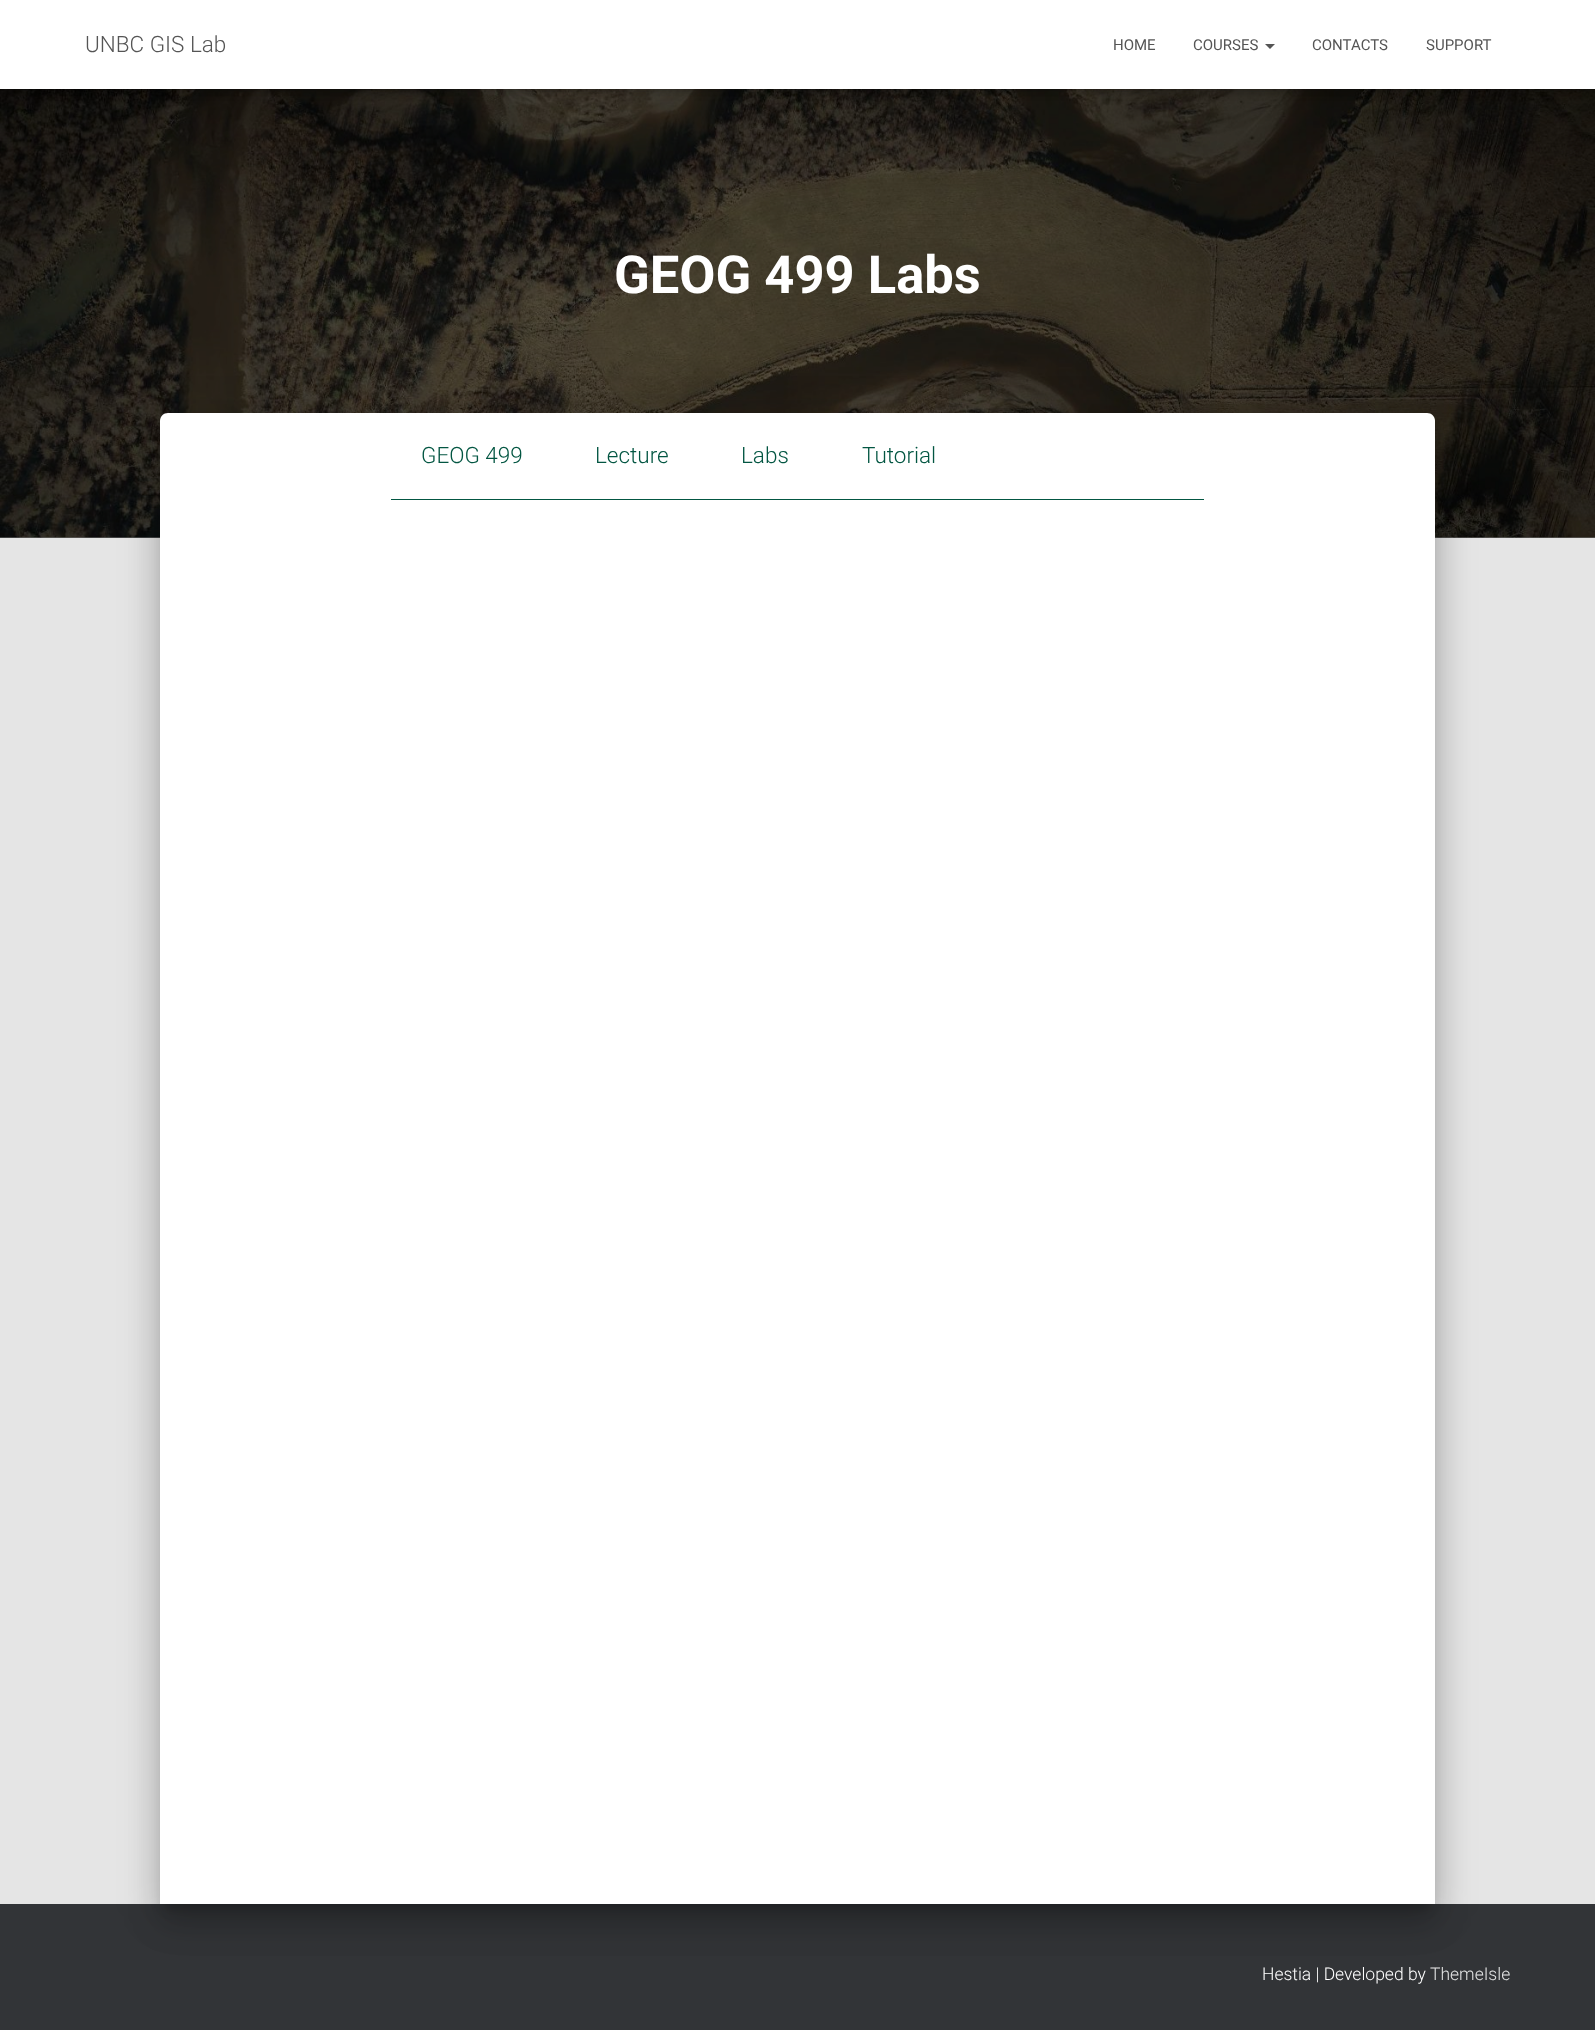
<svg xmlns="http://www.w3.org/2000/svg" width="1595" height="2030">
<style>
.a{font:300 22.5px Roboto;fill:#555}
.b{font:15px Roboto;fill:#555}
.c{font:bold 52.5px Roboto;fill:#fff}
.d{font:300 22.5px Roboto;fill:#035642}
.e{font:300 17.5px Roboto;fill:#fff}
.f{font:300 17.5px Roboto;fill:#e2e3e3}
</style>
<rect width="100%" height="100%" fill="#e5e5e5"/>
<path fill="#737373" d="M0 537h1595v1H0z"/>
<image href="1.png" x="0" y="89" width="1595" height="449"/>
<path fill="#0000001a" filter="blur(3px)" d="M3 8h1590v83H3z"/>
<path fill="#0000001f" filter="blur(6px)" d="M0 1h1595v89H0z"/>
<path fill="#0000006b" filter="blur(6px)" d="M8 9h1580v74H8z"/>
<path fill="#fff" d="M0 0h1595v89H0z"/>
<path fill="#555" d="M1265 44h10l-5 5z"/>
<path fill="#323437" d="M0 1904h1595v126H0z"/>
<rect fill="#00000033" filter="blur(6px)" x="166" y="429" width="1263" height="1479" rx="1"/>
<rect fill="#0000001f" filter="blur(19px)" x="154" y="414" width="1287" height="1504" rx="14"/>
<rect fill="#00000024" filter="blur(15px)" x="158" y="430" width="1280" height="1496" rx="10"/>
<path fill="#fff" d="M168 413h1259c4.5 0 8 3.5 8 8v1483h-1275v-1483c0-4.5 3.5-8 8-8z"/>
<path fill="#035642" d="M391 499h813v1H391z"/>
<text class="a" x="85" y="52">UNBC GIS Lab</text>
<text class="b" x="1113" y="50">HOME</text>
<text class="b" x="1193" y="50">COURSES</text>
<text class="b" x="1312" y="50">CONTACTS</text>
<text class="b" x="1426" y="50">SUPPORT</text>
<text class="c" x="614" y="293">GEOG 499 Labs</text>
<text class="d" x="421" y="463">GEOG 499</text>
<text class="d" x="595" y="463">Lecture</text>
<text class="d" x="741" y="463">Labs</text>
<text class="d" x="862" y="463">Tutorial</text>
<text class="e" x="1262" y="1980">Hestia | Developed by</text>
<text class="f" x="1430" y="1980">ThemeIsle</text>
</svg>
